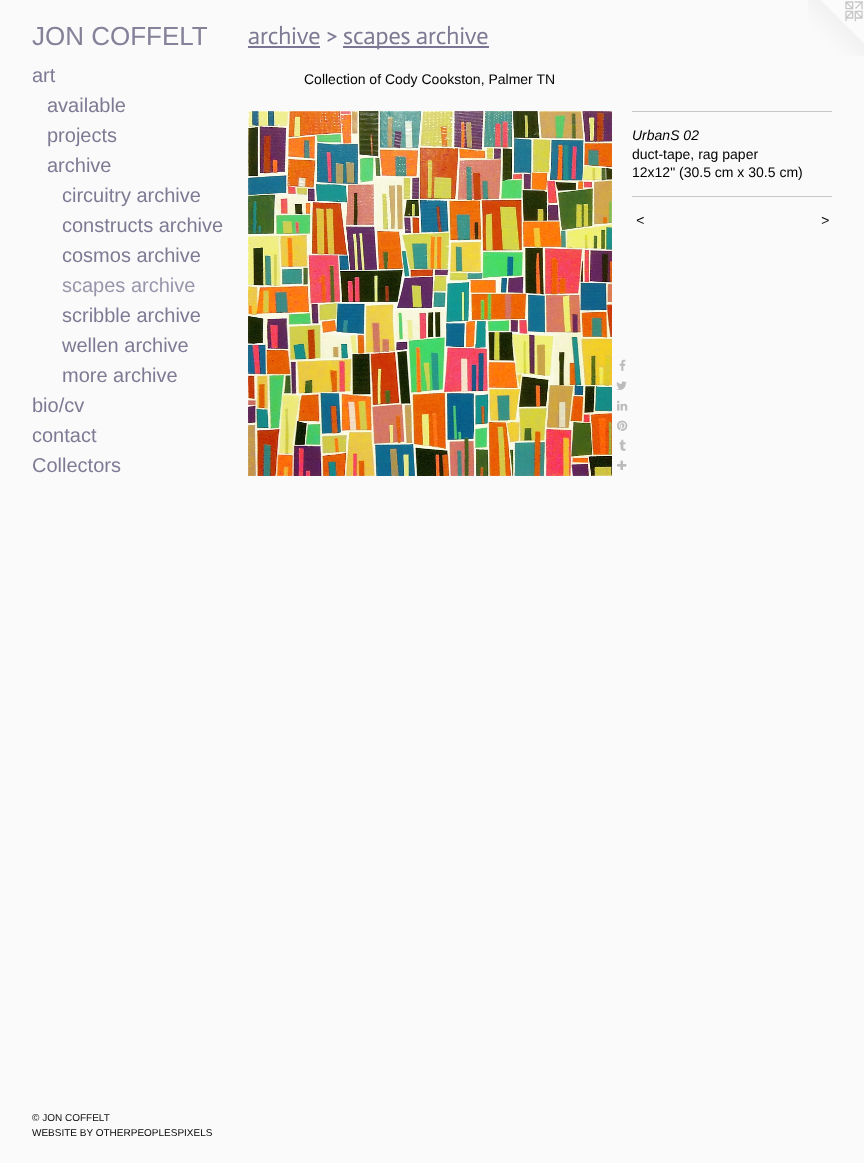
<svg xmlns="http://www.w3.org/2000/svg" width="864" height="1163">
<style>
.a{font:26px Liberation Sans;fill:#848198}
.b{font:20px Liberation Sans;fill:#7e7a94}
.c{font:20px Liberation Sans;fill:#9996ab}
.d{font:10px Liberation Sans;fill:#0c0e0d}
.e{font:10px Liberation Sans;fill:#040605}
.f{font:24px Actor;fill:#7e7a94}
.g{font:14px Liberation Sans;fill:#000}
.h{font:italic 14px Liberation Sans;fill:#000}
.i{font:italic 14px Liberation Sans;letter-spacing:1px;fill:#000}
</style>
<rect width="100%" height="100%" fill="#fafafa"/>
<path fill="#7b7595" d="M248 46h72v2H248z"/>
<path fill="#7b7595" d="M343 46h146v2H343z"/>
<image href="1.png" x="248" y="111" width="364" height="365"/>
<image href="2.png" x="619" y="359" width="7" height="12"/>
<image href="3.png" x="616" y="381" width="11" height="9"/>
<image href="4.png" x="617" y="400" width="11" height="11"/>
<image href="5.png" x="617" y="420" width="11" height="11"/>
<image href="6.png" x="619" y="439" width="7" height="12"/>
<image href="7.png" x="617" y="460" width="10" height="10"/>
<path fill="#c8c8c8" d="M632 111h200v1H632z"/>
<path fill="#c8c8c8" d="M632 196h200v1H632z"/>
<image href="8.png" x="808" y="0" width="56" height="56"/>
<text class="a" x="32" y="45">JON COFFELT</text>
<text class="b" x="32" y="82">art</text>
<text class="b" x="47" y="112">available</text>
<text class="b" x="47" y="142">projects</text>
<text class="b" x="47" y="172">archive</text>
<text class="b" x="62" y="202">circuitry archive</text>
<text class="b" x="62" y="232">constructs archive</text>
<text class="b" x="62" y="262">cosmos archive</text>
<text class="c" x="62" y="292">scapes archive</text>
<text class="b" x="62" y="322">scribble archive</text>
<text class="b" x="62" y="352">wellen archive</text>
<text class="b" x="62" y="382">more archive</text>
<text class="b" x="32" y="412">bio/cv</text>
<text class="b" x="32" y="442">contact</text>
<text class="b" x="32" y="472">Collectors</text>
<text class="d" x="32" y="1121">© JON COFFELT</text>
<text class="e" x="32" y="1136">WEBSITE BY OTHERPEOPLESPIXELS</text>
<text class="f" x="248" y="44">archive &gt;</text>
<text class="f" x="343" y="44">scapes archive</text>
<text class="g" x="304" y="84">Collection of Cody Cookston, Palmer TN</text>
<text class="h" x="632" y="140">UrbanS 02</text>
<text class="g" x="632" y="159">duct-tape, rag paper</text>
<text class="g" x="632" y="177">12x12" (30.5 cm x 30.5 cm)</text>
<text class="i" x="636" y="225">&lt;</text>
<text class="i" x="821" y="225">&gt;</text>
</svg>
